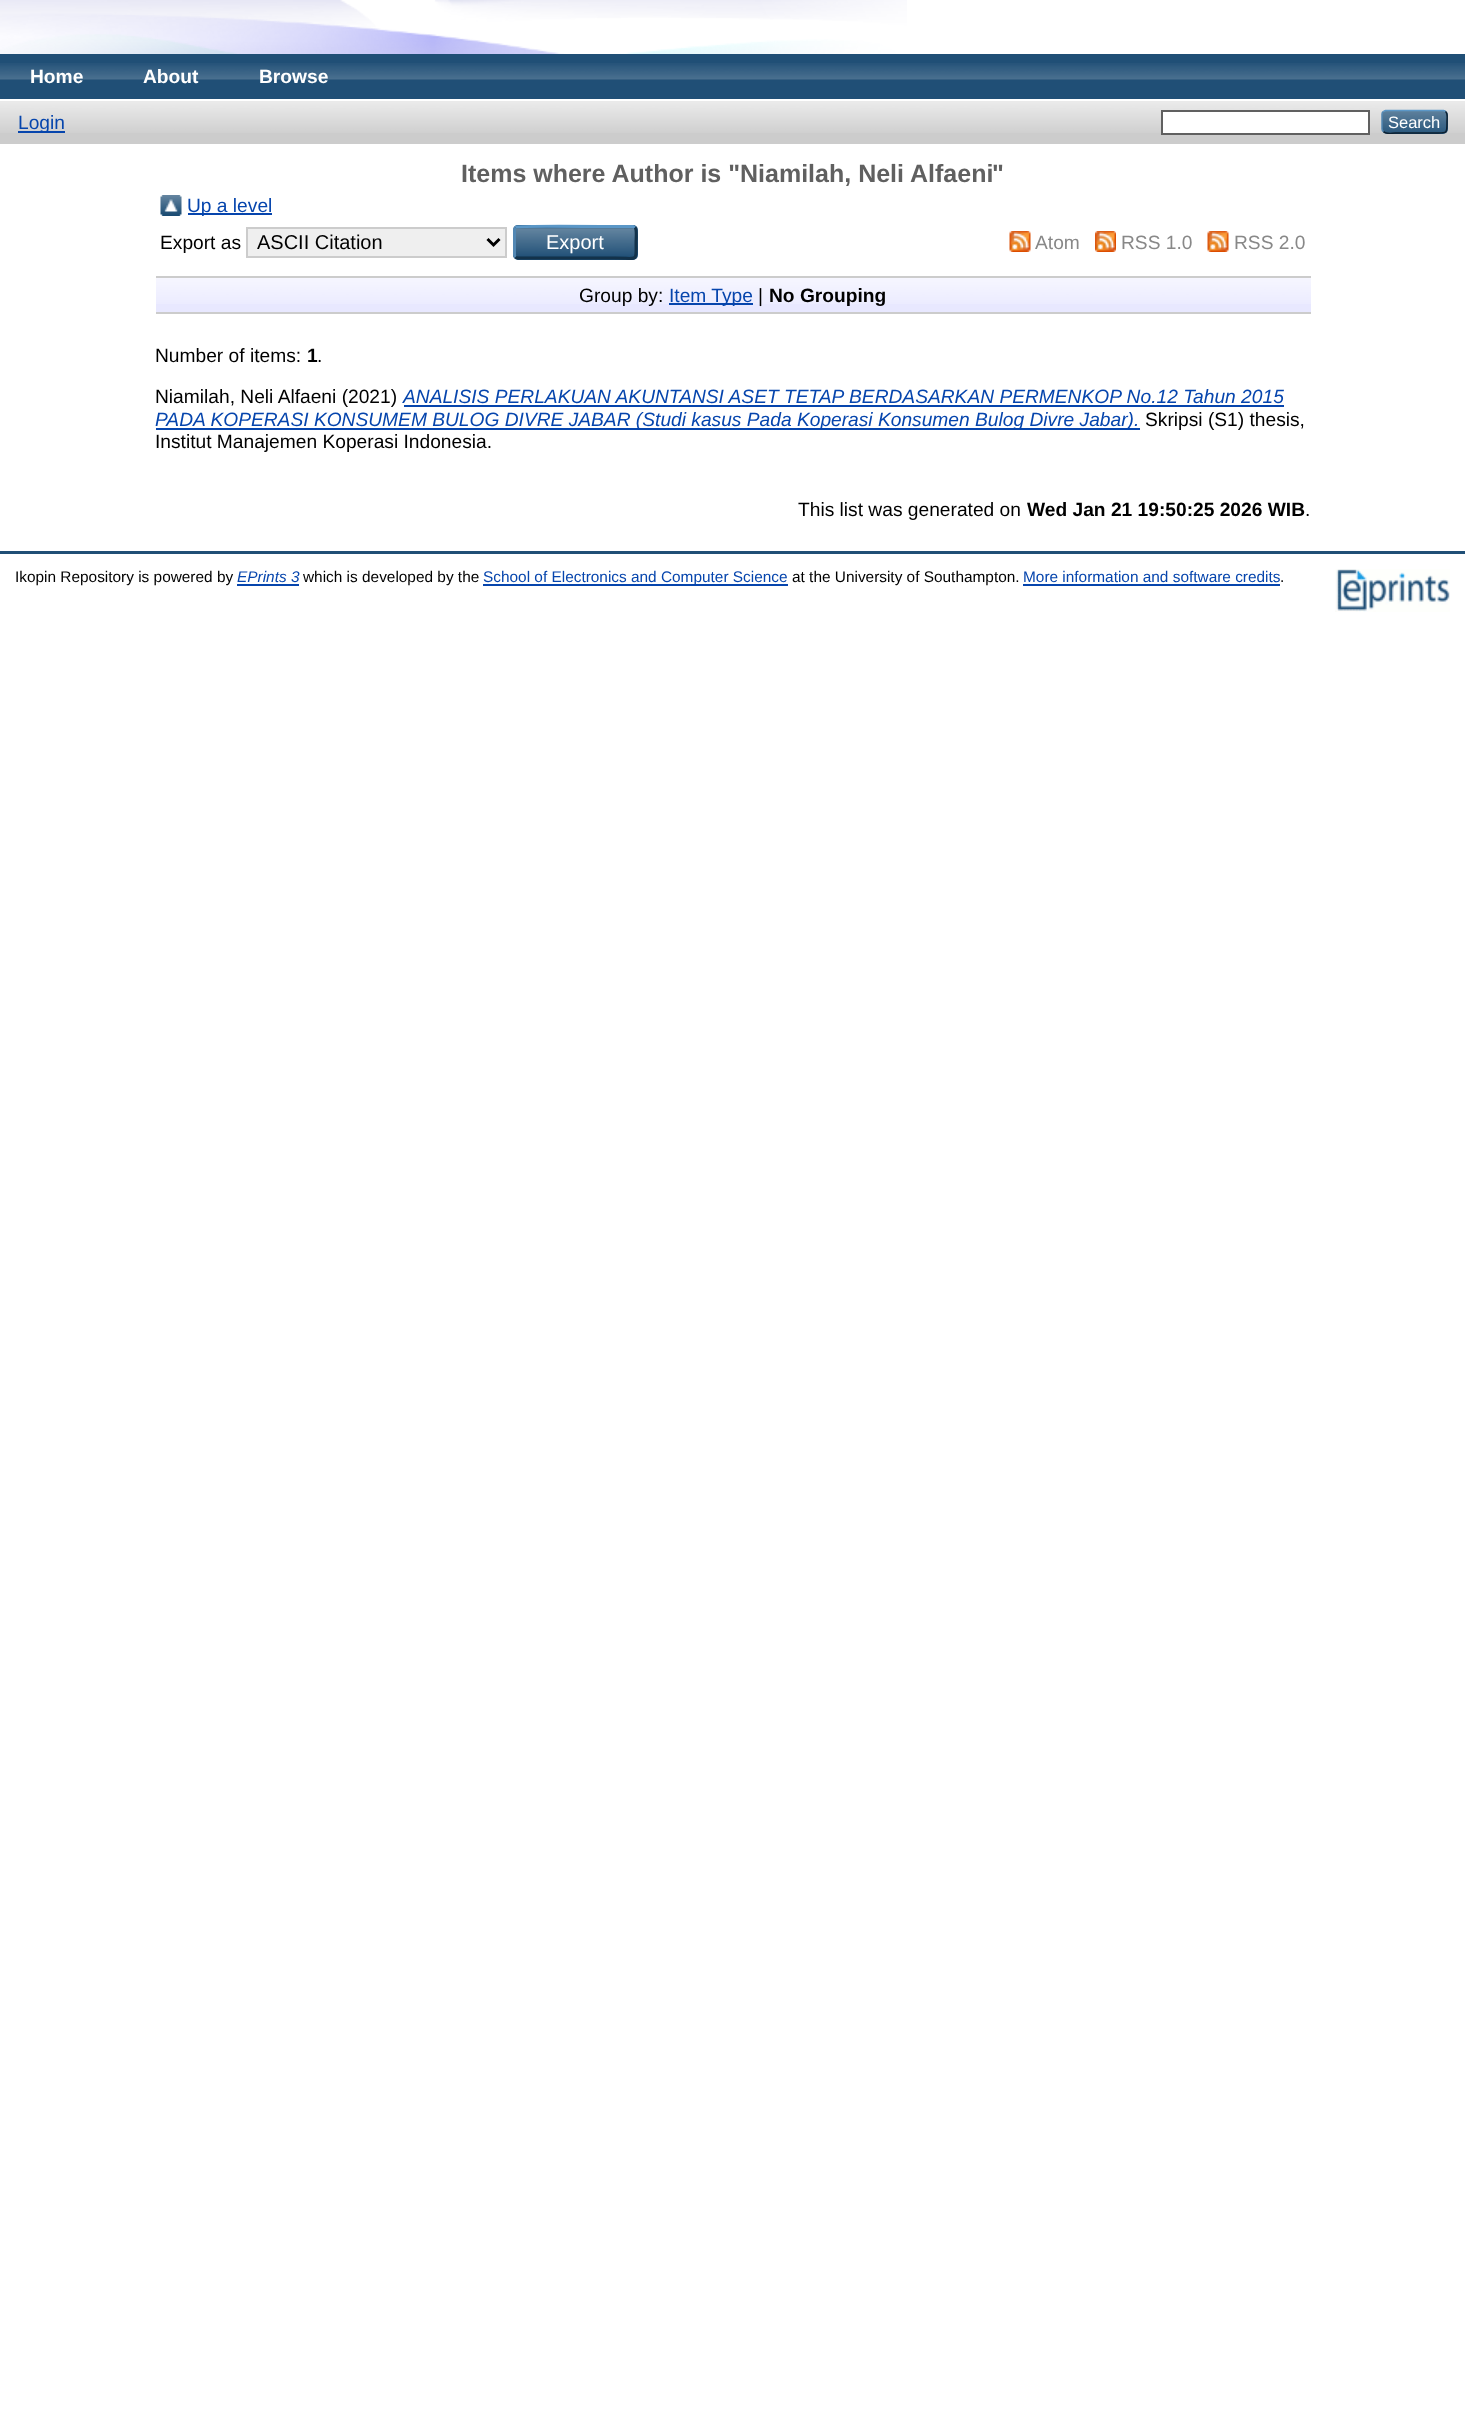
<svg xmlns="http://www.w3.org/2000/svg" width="1465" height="2414">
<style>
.a{font:bold 19.2px Liberation Sans;fill:#fff}
.b{font:19.2px Liberation Sans;fill:#0645ad}
.c{font:16.5px Liberation Sans;fill:#fff}
.d{font:bold 25px Liberation Sans;fill:#606060}
.e{font:19.2px Liberation Sans;fill:#000}
.f{font:20px Liberation Sans;fill:#000}
.g{font:20px Liberation Sans;fill:#fff}
.h{font:19.2px Liberation Sans;fill:#888}
.i{font:bold 19.2px Liberation Sans;fill:#000}
.j{font:italic 19.2px Liberation Sans;fill:#0645ad}
.k{font:15.4px Liberation Sans;fill:#000}
.l{font:italic 15.4px Liberation Sans;fill:#0645ad}
.m{font:15.4px Liberation Sans;fill:#0645ad}
</style>
<rect width="100%" height="100%" fill="#fff"/>
<image href="1.png" x="0" y="0" width="907" height="54"/>
<path fill="#204f76" d="M0 54h1465v45H0z"/>
<image href="2.png" x="0" y="63" width="1465" height="17"/>
<path fill="#ccc" d="M0 101h1465v43H0z"/>
<image href="3.png" x="0" y="101" width="1465" height="32"/>
<path fill="#0645ad" d="M18 131h47v2H18z"/>
<path fill="#fff" stroke="#606060" stroke-width="2" d="M1162 111h207v23H1162z"/>
<rect fill="#1f4f76" x="1382" y="110" width="66" height="24" rx="5"/>
<image href="4.png" x="1382" y="110" width="66" height="23"/>
<path fill="none" stroke="#5b97c7" stroke-width="1.5" d="M1383.5 111.5l2-1h58l2 1"/>
<path fill="none" stroke="#0d2131" stroke-width="1.5" d="M1445.5 111.5c2.5 2 1.5 7 1.5 10c0 13 .5 11.5-13.5 11.5h-38c-.5 0-9.5 1.5-12-1.5"/>
<path fill="none" stroke="#5287b3" stroke-width="1.5" d="M1383.5 131.5c-1-.5-1.5-1.5-1.5-2.5v-15c0-1 .5-2 1.5-2.5"/>
<image href="5.png" x="160" y="195" width="22" height="21"/>
<path fill="#0645ad" d="M188 213h84v2H188z"/>
<path fill="#efefef" stroke="#ccc" stroke-width="2" d="M247 228h259v29H247z"/>
<path fill="none" stroke="#000" stroke-width="3" d="M487.5 239l6 6l6-6"/>
<rect fill="#1f4f76" x="513" y="225" width="125" height="35" rx="5"/>
<image href="6.png" x="513" y="227" width="125" height="29"/>
<path fill="none" stroke="#5b97c7" stroke-width="3" d="M515.5 227.5l.5-.5c2-1.5 87.5-.5 98-.5h19l2 1"/>
<path fill="none" stroke="#13324a" stroke-width="3" d="M635 227.5c2 2 1 12 1 14.5c0 21 2.5 16-22 16h-96.5l-2-1"/>
<path fill="none" stroke="#5287b3" stroke-width="3" d="M515.5 257c-.5-.5-1-1-1-2v-25.5c0-1 .5-1.5 1-2"/>
<image href="7.png" x="1009" y="231" width="22" height="21"/>
<image href="8.png" x="1095" y="231" width="21" height="21"/>
<image href="7.png" x="1207" y="231" width="22" height="21"/>
<path fill="#e8e8ff" d="M156 278h1155v34H156z"/>
<image href="9.png" x="156" y="278" width="1155" height="26"/>
<path fill="#ccc" d="M156 276h1155v2H156z"/>
<path fill="#ccc" d="M156 312h1155v2H156z"/>
<path fill="#0645ad" d="M669 303h84v2H669z"/>
<path fill="#0645ad" d="M404 405h880v2H404z"/>
<path fill="#0645ad" d="M156 428h984v2H156z"/>
<path fill="#204f76" d="M0 551h1465v3H0z"/>
<path fill="#0645ad" d="M237 584h62v2H237z"/>
<path fill="#0645ad" d="M483 584h305v2H483z"/>
<path fill="#0645ad" d="M1023 584h257v2H1023z"/>
<image href="10.png" x="1335" y="569" width="115" height="43"/>
<text class="a" x="30" y="83">Home</text>
<text class="a" x="143" y="83">About</text>
<text class="a" x="259" y="83">Browse</text>
<text class="b" x="18" y="129">Login</text>
<text class="c" x="1388" y="128">Search</text>
<text class="d" x="461" y="182">Items where Author is "Niamilah, Neli Alfaeni</text>
<text class="d" x="992" y="182">"</text>
<text class="b" x="187" y="212">Up a level</text>
<text class="e" x="160" y="249">Export as</text>
<text class="f" x="257" y="249">ASCII Citation</text>
<text class="g" x="546" y="249">Export</text>
<text class="h" x="1035" y="249">Atom</text>
<text class="h" x="1121" y="249">RSS 1.0</text>
<text class="h" x="1234" y="249">RSS 2.0</text>
<text class="e" x="579" y="302">Group by:</text>
<text class="b" x="669" y="302">Item Type</text>
<text class="e" x="758" y="302">|</text>
<text class="i" x="769" y="302">No Grouping</text>
<text class="e" x="155" y="362">Number of items:</text>
<text class="i" x="307" y="362">1</text>
<text class="e" x="317" y="362">.</text>
<text class="e" x="155" y="403">Niamilah, Neli Alfaeni (2021)</text>
<text class="j" x="403" y="403">ANALISIS PERLAKUAN AKUNTANSI ASET TETAP BERDASARKAN PERMENKOP No.12 Tahun 2015</text>
<text class="j" x="155" y="426">PADA KOPERASI KONSUMEM BULOG DIVRE JABAR (Studi kasus Pada Koperasi Konsumen Bulog Divre Jabar).</text>
<text class="e" x="1145" y="426">Skripsi (S1) thesis,</text>
<text class="e" x="155" y="448">Institut Manajemen Koperasi Indonesia.</text>
<text class="e" x="798" y="516">This list was generated on</text>
<text class="i" x="1027" y="516">Wed Jan 21 19:50:25 2026 WIB</text>
<text class="e" x="1305" y="516">.</text>
<text class="k" x="15" y="582">Ikopin Repository is powered by</text>
<text class="l" x="237" y="582">EPrints 3</text>
<text class="k" x="303" y="582">which is developed by the</text>
<text class="m" x="483" y="582">School of Electronics and Computer Science</text>
<text class="k" x="792" y="582">at the University of Southampton.</text>
<text class="m" x="1023" y="582">More information and software credits</text>
<text class="k" x="1280" y="582">.</text>
</svg>
